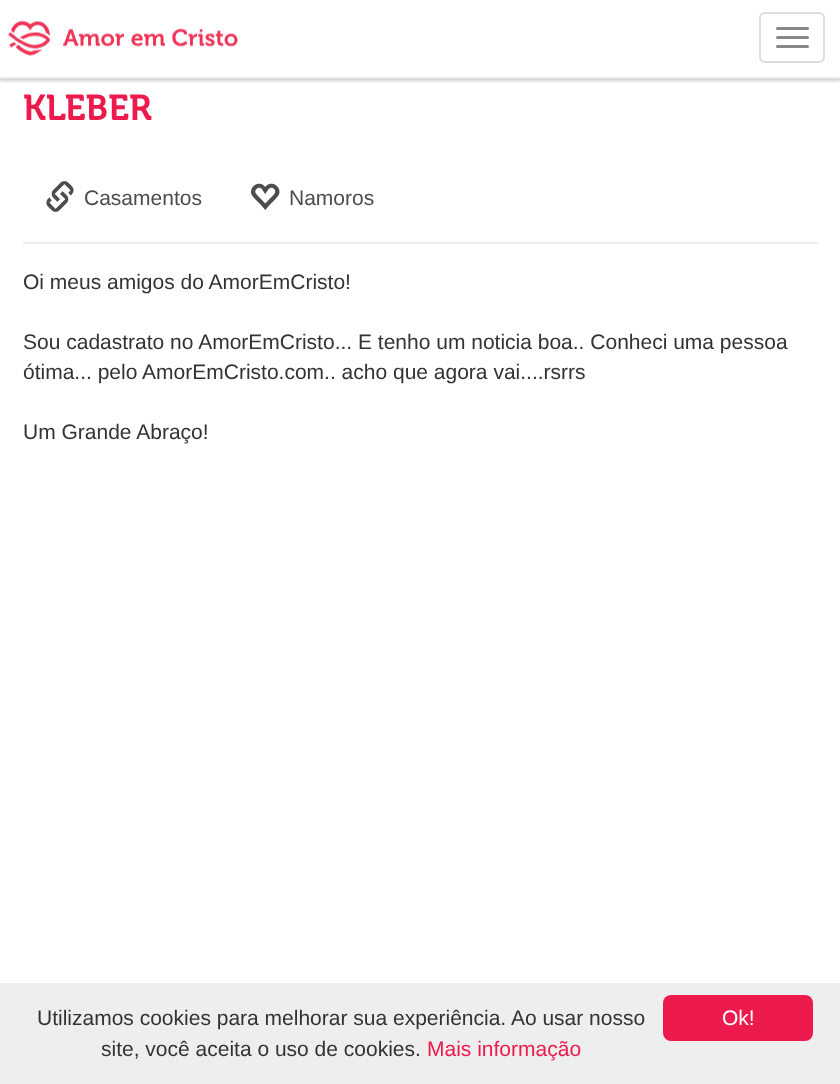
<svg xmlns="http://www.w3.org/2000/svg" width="840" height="1084">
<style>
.a{font:36px 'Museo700';fill:#ed1a4d}
.b{font:21px Liberation Sans;fill:#4c4c4c}
.c{font:21px Liberation Sans;fill:#333}
.d{font:21px Liberation Sans;fill:#ed1a4d}
.e{font:21px Liberation Sans;fill:#fff}
</style>
<defs>
<clipPath id="clip1"><path d="M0 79h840v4H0z"/></clipPath>
</defs>
<rect width="100%" height="100%" fill="#fff"/>
<g clip-path="url(#clip1)">
<path fill="#00000033" filter="blur(1.5px)" d="M0 3h840v78H0z"/>
</g>
<path fill="#e7e7e7" d="M0 77h840v2H0z"/>
<image href="1.png" x="8" y="20" width="230" height="36"/>
<rect fill="none" stroke="#ddd" stroke-width="2" x="760" y="13" width="64" height="49" rx="5"/>
<rect fill="#888" x="776" y="27" width="33" height="3" rx="1.5"/>
<rect fill="#888" x="776" y="36" width="33" height="3" rx="1.5"/>
<rect fill="#888" x="776" y="45" width="33" height="3" rx="1.5"/>
<image href="2.png" x="46" y="181" width="28" height="31"/>
<image href="3.png" x="251" y="183" width="29" height="27"/>
<path fill="#eee" d="M23 242h795v2H23z"/>
<path fill="#eee" d="M0 983h840v101H0z"/>
<rect fill="#ed1a4d" x="663" y="995" width="150" height="46" rx="8"/>
<text class="a" x="23" y="120">KLEBER</text>
<text class="b" x="84" y="205">Casamentos</text>
<text class="b" x="289" y="205">Namoros</text>
<text class="c" x="23" y="289">Oi meus amigos do AmorEmCristo!</text>
<text class="c" x="23" y="349">Sou cadastrato no AmorEmCristo... E tenho um noticia boa.. Conheci uma pessoa</text>
<text class="c" x="23" y="379">ótima... pelo AmorEmCristo.com.. acho que agora vai....rsrrs</text>
<text class="c" x="23" y="439">Um Grande Abraço!</text>
<text class="c" x="37" y="1025">Utilizamos cookies para melhorar sua experiência. Ao usar nosso</text>
<text class="c" x="101" y="1056">site, você aceita o uso de cookies.</text>
<text class="d" x="427" y="1056">Mais informação</text>
<text class="e" x="722" y="1025">Ok!</text>
</svg>
